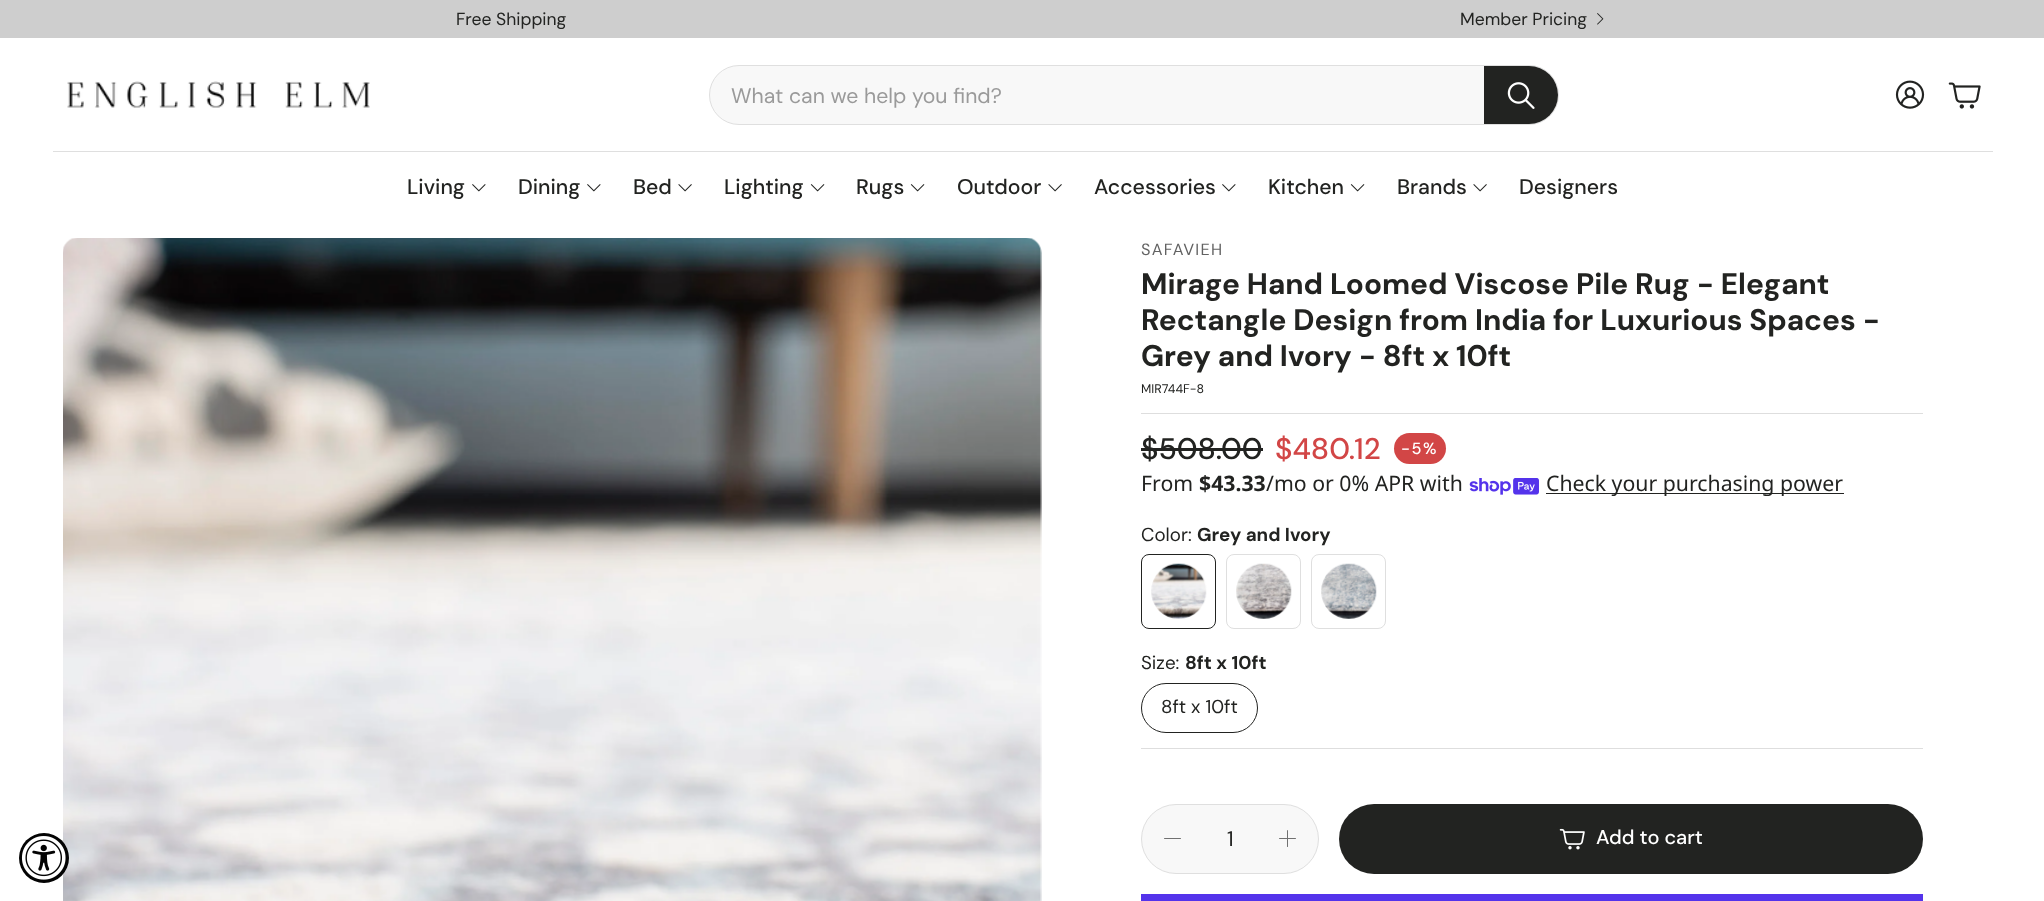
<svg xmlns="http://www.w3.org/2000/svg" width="2044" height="901">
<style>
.a{font:17.5px 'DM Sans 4';fill:#222321}
.b{font:21.25px 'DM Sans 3';fill:#9a9a9a}
.c{font:500 21.25px 'DM Sans 4';fill:#222321}
.d{font:16.25px DM Sans;letter-spacing:1.25px;fill:#626262}
.e{font:bold 29.75px DM Sans;fill:#222321}
.f{font:12.5px DM Sans;fill:#222321}
.g{font:500 29.75px DM Sans;fill:#222321}
.h{font:500 29.75px DM Sans;fill:#d24646}
.i{font:500 16.25px 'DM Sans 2';letter-spacing:1.5px;fill:#fff}
.j{font:21.25px Noto Sans;fill:#222321}
.k{font:bold 21.25px Noto Sans;fill:#222321}
.l{font:18.75px 'DM Sans 2';fill:#222321}
.m{font:bold 18.75px 'DM Sans 2';fill:#222321}
.n{font:21.25px 'DM Sans 3';fill:#222321}
.o{font:500 20px 'DM Sans 3';fill:#fff}
</style>
<defs>
<clipPath id="clip1"><rect x="710" y="66" width="848" height="58" rx="29"/></clipPath>
</defs>
<rect width="100%" height="100%" fill="#fff"/>
<path fill="#cecece" d="M0 0h2044v38H0z"/>
<image href="1.png" x="1597" y="13" width="7" height="12"/>
<image href="2.png" x="67" y="81" width="303" height="27"/>
<rect fill="#f8f8f8" stroke="#dfdfdf" x="709.5" y="65.5" width="849" height="59" rx="29.5"/>
<g clip-path="url(#clip1)">
<path fill="#222321" d="M1484 65h45c16.5 0 30 13.5 30 30c0 16.5-13.5 30-30 30h-45z"/>
</g>
<image href="3.png" x="1507" y="82" width="28" height="27"/>
<image href="4.png" x="1895" y="80" width="30" height="29"/>
<image href="5.png" x="1948" y="82" width="33" height="27"/>
<path fill="#dfdfdf" d="M53 151h1940v1H53z"/>
<image href="6.png" x="472" y="184" width="14" height="8"/>
<image href="6.png" x="587" y="184" width="14" height="8"/>
<image href="7.png" x="678" y="184" width="14" height="8"/>
<image href="8.png" x="810" y="184" width="15" height="8"/>
<image href="8.png" x="910" y="184" width="15" height="8"/>
<image href="7.png" x="1048" y="184" width="14" height="8"/>
<image href="6.png" x="1222" y="184" width="14" height="8"/>
<image href="8.png" x="1350" y="184" width="15" height="8"/>
<image href="7.png" x="1473" y="184" width="14" height="8"/>
<image href="9.png" x="63" y="238" width="979" height="663"/>
<path fill="#dedede" d="M1141 413h782v1H1141z"/>
<path fill="#222321" d="M1141 448h122v3H1141z"/>
<rect fill="#d24646" x="1394" y="433" width="52" height="31" rx="15.5"/>
<image href="10.png" x="1469" y="478" width="70" height="17"/>
<path fill="#222321" d="M1546 493h298v1H1546z"/>
<image href="11.png" x="1151" y="563" width="56" height="56"/>
<rect fill="none" stroke="#222321" x="1141.5" y="554.5" width="74" height="74" rx="7.5"/>
<image href="12.png" x="1236" y="563" width="56" height="56"/>
<rect fill="none" stroke="#dfdfdf" x="1226.5" y="554.5" width="74" height="74" rx="7.5"/>
<image href="13.png" x="1321" y="563" width="56" height="56"/>
<rect fill="none" stroke="#dfdfdf" x="1311.5" y="554.5" width="74" height="74" rx="7.5"/>
<rect fill="none" stroke="#222321" x="1141.5" y="683.5" width="116" height="49" rx="24.5"/>
<path fill="#dedede" d="M1141 748h782v1H1141z"/>
<rect fill="#f8f8f8" stroke="#dfdfdf" x="1141.5" y="804.5" width="177" height="69" rx="34.5"/>
<rect fill="#717171" x="1164" y="838" width="17" height="1" rx="0.5"/>
<rect fill="#717171" x="1279" y="838" width="17" height="1" rx="0.5"/>
<rect fill="#717171" x="1287" y="830" width="1" height="17" rx="0.5"/>
<rect fill="#222321" x="1339" y="804" width="584" height="70" rx="35"/>
<image href="14.png" x="1559" y="828" width="26" height="22"/>
<path fill="#5433eb" d="M1141 894h782v7H1141z"/>
<circle fill="#030303" cx="44" cy="858" r="25"/>
<image href="15.png" x="21" y="836" width="45" height="44"/>
<text class="a" x="456" y="25">Free Shipping</text>
<text class="a" x="1460" y="25">Member Pricing</text>
<text class="b" x="731" y="103">What can we help you find?</text>
<text class="c" x="407" y="194">Living</text>
<text class="c" x="518" y="194">Dining</text>
<text class="c" x="633" y="194">Bed</text>
<text class="c" x="724" y="194">Lighting</text>
<text class="c" x="856" y="194">Rugs</text>
<text class="c" x="957" y="194">Outdoor</text>
<text class="c" x="1094" y="194">Accessories</text>
<text class="c" x="1268" y="194">Kitchen</text>
<text class="c" x="1397" y="194">Brands</text>
<text class="c" x="1519" y="194">Designers</text>
<text class="d" x="1141" y="255">SAFAVIEH</text>
<text class="e" x="1141" y="294">Mirage Hand Loomed Viscose Pile Rug - Elegant</text>
<text class="e" x="1141" y="330">Rectangle Design from India for Luxurious Spaces -</text>
<text class="e" x="1141" y="366">Grey and Ivory - 8ft x 10ft</text>
<text class="f" x="1141" y="393">MIR744F-8</text>
<text class="g" x="1141" y="459">$508.00</text>
<text class="h" x="1275" y="459">$480.12</text>
<text class="i" x="1401" y="454">-5%</text>
<text class="j" x="1141" y="491">From</text>
<text class="k" x="1199" y="491">$43.33</text>
<text class="j" x="1266" y="491">/mo or 0% APR with</text>
<text class="j" x="1546" y="491">Check your purchasing power</text>
<text class="l" x="1141" y="541">Color:</text>
<text class="m" x="1197" y="541">Grey and Ivory</text>
<text class="l" x="1141" y="669">Size:</text>
<text class="m" x="1185" y="669">8ft x 10ft</text>
<text class="l" x="1161" y="713">8ft x 10ft</text>
<text class="n" x="1227" y="846">1</text>
<text class="o" x="1596" y="844">Add to cart</text>
</svg>
